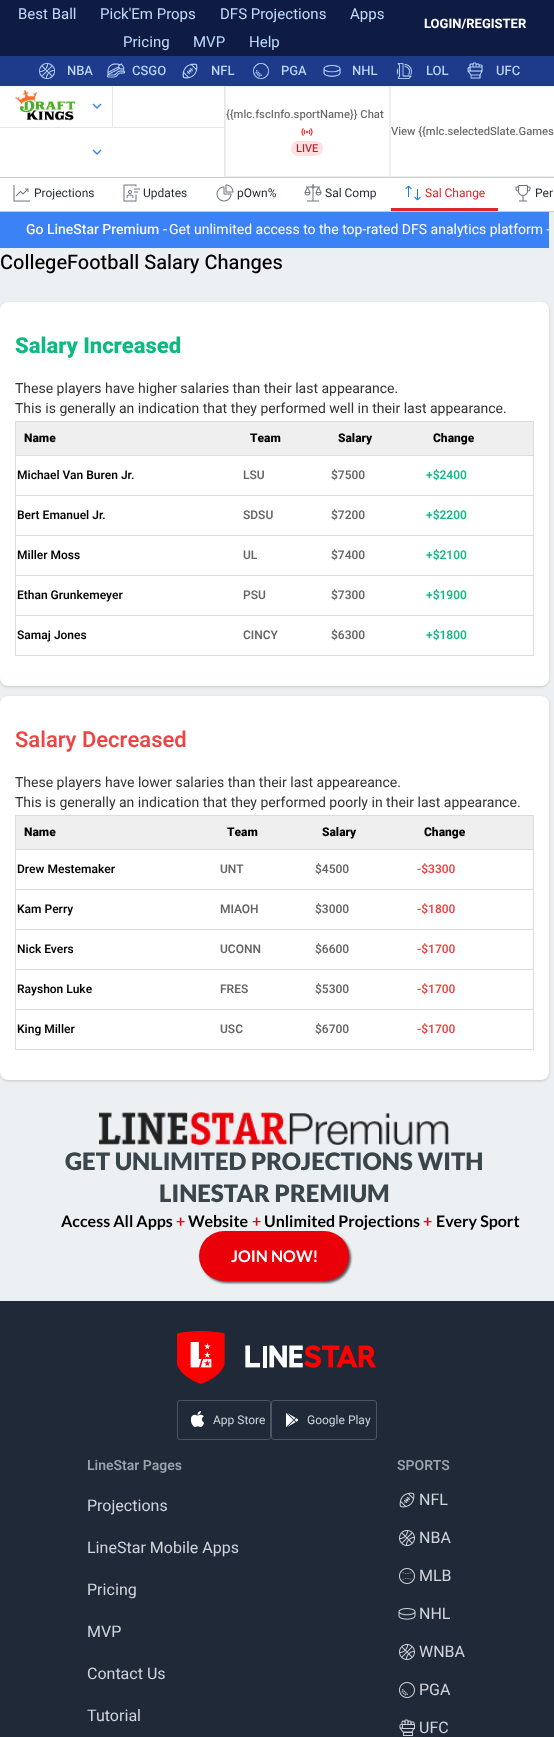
<svg xmlns="http://www.w3.org/2000/svg" width="554" height="1737">
<style>
.a{font:15px Heebo;fill:#bfdbfe}
.b{font:bold 13px Heebo;fill:#fff}
.c{font:500 13px Heebo;fill:#bfdbfe}
.d{font:500 11.25px Heebo;fill:#666}
.e{font:500 11px Heebo;fill:#c11c26}
.f{font:12px Heebo;fill:#1f2937}
.g{font:12px Heebo;fill:#dc2626}
.h{font:500 14px Heebo;fill:#fff}
.i{font:14px Heebo;fill:#fff}
.j{font:500 20px Heebo;fill:#000}
.k{font:800 22px Heebo;fill:#10b981}
.l{font:14px Heebo;fill:#333}
.m{font:800 12px Heebo;fill:#000}
.n{font:600 12px Heebo;fill:#000}
.o{font:600 12px Heebo;fill:#666}
.p{font:600 12px Heebo;fill:#10b981}
.q{font:600 22px Heebo;fill:#ef4444}
.r{font:600 12px Heebo;fill:#ef4444}
.s{font:900 24px Lato;fill:#3a454c}
.t{font:bold 16px Lato;fill:#000}
.u{font:bold 16px Lato;fill:#e6001c}
.v{font:bold 16px Lato;fill:#fff}
.w{font:12px Heebo;fill:#d1d5db}
.x{font:600 14px Heebo;fill:#9ca3af}
.y{font:16px Heebo;fill:#d1d5db}
</style>
<defs>
<clipPath id="clip1"><path d="M0 212h549v36H0z"/></clipPath>
</defs>
<rect width="100%" height="100%" fill="#1e3a8a"/>
<path fill="#0e1c43" d="M0 0h554v56H0z"/>
<image href="1.png" x="39" y="63" width="16" height="16"/>
<image href="2.png" x="106" y="63" width="20" height="15"/>
<image href="3.png" x="182" y="63" width="16" height="16"/>
<image href="4.png" x="253" y="63" width="16" height="16"/>
<image href="5.png" x="323" y="64" width="18" height="13"/>
<image href="6.png" x="396" y="63" width="16" height="16"/>
<image href="7.png" x="467" y="62" width="16" height="17"/>
<path fill="#fff" d="M0 86h554v91H0z"/>
<path fill="#e5e7eb" d="M224 86h1v91H224z"/>
<path fill="#e5e7eb" d="M0 127h225v1H0z"/>
<path fill="#e5e7eb" d="M112 86h1v41H112z"/>
<image href="8.png" x="15" y="90" width="60" height="31"/>
<image href="9.png" x="92" y="103" width="10" height="6"/>
<image href="9.png" x="92" y="149" width="10" height="6"/>
<path fill="none" stroke="#eee" d="M225.5 86.5h164v90H225.5z"/>
<image href="10.png" x="301" y="128" width="12" height="8"/>
<rect fill="#ffe1e2" x="291" y="141" width="32" height="15" rx="7"/>
<path fill="none" stroke="#eee" d="M390.5 86.5h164v90H390.5z"/>
<path fill="#fff" d="M0 178h554v33H0z"/>
<path fill="#ccc" d="M0 177h554v1H0z"/>
<path fill="#ccc" d="M0 211h554v1H0z"/>
<image href="11.png" x="13" y="185" width="17" height="17"/>
<image href="12.png" x="123" y="184" width="17" height="18"/>
<image href="13.png" x="216" y="184" width="18" height="18"/>
<image href="14.png" x="304" y="184" width="18" height="18"/>
<path fill="#dc2626" d="M391 208h107v3H391z"/>
<image href="15.png" x="405" y="185" width="16" height="16"/>
<image href="16.png" x="515" y="185" width="16" height="17"/>
<path fill="#edf0f2" d="M0 212h554v1089H0z"/>
<path fill="#3b82f6" d="M0 212h549v36H0z"/>
<rect fill="#0000000f" filter="blur(1px)" y="303" width="549" height="384" rx="8"/>
<rect fill="#0000001a" filter="blur(1.5px)" y="303" width="549" height="384" rx="8"/>
<rect fill="#fff" y="302" width="549" height="384" rx="8"/>
<path fill="#ddd" d="M15 421h519v1H15z"/>
<path fill="#ddd" d="M533 421h1v235H533z"/>
<path fill="#ddd" d="M15 655h519v1H15z"/>
<path fill="#ddd" d="M15 421h1v235H15z"/>
<path fill="#efefef" d="M16 422h517v33H16z"/>
<path fill="#ddd" d="M15 455h519v1H15z"/>
<path fill="#ddd" d="M15 495h519v1H15z"/>
<path fill="#ddd" d="M15 535h519v1H15z"/>
<path fill="#ddd" d="M15 575h519v1H15z"/>
<path fill="#ddd" d="M15 615h519v1H15z"/>
<rect fill="#0000000f" filter="blur(1px)" y="697" width="549" height="384" rx="8"/>
<rect fill="#0000001a" filter="blur(1.5px)" y="697" width="549" height="384" rx="8"/>
<rect fill="#fff" y="696" width="549" height="384" rx="8"/>
<path fill="#ddd" d="M15 815h519v1H15z"/>
<path fill="#ddd" d="M533 815h1v235H533z"/>
<path fill="#ddd" d="M15 1049h519v1H15z"/>
<path fill="#ddd" d="M15 815h1v235H15z"/>
<path fill="#efefef" d="M16 816h517v33H16z"/>
<path fill="#ddd" d="M15 849h519v1H15z"/>
<path fill="#ddd" d="M15 889h519v1H15z"/>
<path fill="#ddd" d="M15 929h519v1H15z"/>
<path fill="#ddd" d="M15 969h519v1H15z"/>
<path fill="#ddd" d="M15 1009h519v1H15z"/>
<image href="17.png" x="99" y="1112" width="350" height="33"/>
<rect fill="#555" filter="blur(1px)" x="201" y="1233" width="150" height="50" rx="25"/>
<rect fill="#ea0009" x="199" y="1231" width="150" height="50" rx="25"/>
<path fill="#1f2937" d="M0 1301h554v436H0z"/>
<image href="18.png" x="177" y="1331" width="200" height="53"/>
<rect fill="none" stroke="#4b5563" x="177.5" y="1400.5" width="93" height="39" rx="2.5"/>
<image href="19.png" x="191" y="1411" width="13" height="16"/>
<rect fill="none" stroke="#4b5563" x="271.5" y="1400.5" width="105" height="39" rx="2.5"/>
<image href="20.png" x="286" y="1413" width="12" height="14"/>
<image href="21.png" x="399" y="1492" width="16" height="16"/>
<image href="22.png" x="399" y="1530" width="16" height="16"/>
<image href="23.png" x="399" y="1568" width="16" height="16"/>
<image href="24.png" x="398" y="1608" width="18" height="12"/>
<image href="22.png" x="399" y="1644" width="16" height="16"/>
<image href="25.png" x="399" y="1682" width="16" height="16"/>
<image href="26.png" x="399" y="1719" width="16" height="17"/>
<text class="a" x="18" y="19">Best Ball</text>
<text class="a" x="100" y="19">Pick'Em Props</text>
<text class="a" x="220" y="19">DFS Projections</text>
<text class="a" x="350" y="19">Apps</text>
<text class="a" x="123" y="47">Pricing</text>
<text class="a" x="193" y="47">MVP</text>
<text class="a" x="249" y="47">Help</text>
<text class="b" x="424" y="28">LOGIN/REGISTER</text>
<text class="c" x="67" y="75">NBA</text>
<text class="c" x="132" y="75">CSGO</text>
<text class="c" x="211" y="75">NFL</text>
<text class="c" x="281" y="75">PGA</text>
<text class="c" x="352" y="75">NHL</text>
<text class="c" x="426" y="75">LOL</text>
<text class="c" x="496" y="75">UFC</text>
<text class="d" x="226" y="118">{{mlc.fscInfo.sportName}} Chat</text>
<text class="e" x="296" y="152">LIVE</text>
<text class="d" x="391" y="135">View {{mlc.selectedSlate.Games</text>
<text class="f" x="34" y="197">Projections</text>
<text class="f" x="143" y="197">Updates</text>
<text class="f" x="237" y="197">pOwn%</text>
<text class="f" x="325" y="197">Sal Comp</text>
<text class="g" x="425" y="197">Sal Change</text>
<text class="f" x="535" y="197">Per</text>
<text class="h" x="26" y="234">Go LineStar Premium -</text>
<g clip-path="url(#clip1)">
<text class="i" x="169" y="234">Get unlimited access to the top-rated DFS analytics platform -</text>
</g>
<text class="j" x="0" y="269">CollegeFootball Salary Changes</text>
<text class="k" x="15" y="353">Salary Increased</text>
<text class="l" x="15" y="393">These players have higher salaries than their last appearance.</text>
<text class="l" x="15" y="413">This is generally an indication that they performed well in their last appearance.</text>
<text class="m" x="24" y="442">Name</text>
<text class="m" x="250" y="442">Team</text>
<text class="m" x="338" y="442">Salary</text>
<text class="m" x="433" y="442">Change</text>
<text class="n" x="17" y="479">Michael Van Buren Jr.</text>
<text class="o" x="243" y="479">LSU</text>
<text class="o" x="331" y="479">$7500</text>
<text class="p" x="426" y="479">+$2400</text>
<text class="n" x="17" y="519">Bert Emanuel Jr.</text>
<text class="o" x="243" y="519">SDSU</text>
<text class="o" x="331" y="519">$7200</text>
<text class="p" x="426" y="519">+$2200</text>
<text class="n" x="17" y="559">Miller Moss</text>
<text class="o" x="243" y="559">UL</text>
<text class="o" x="331" y="559">$7400</text>
<text class="p" x="426" y="559">+$2100</text>
<text class="n" x="17" y="599">Ethan Grunkemeyer</text>
<text class="o" x="243" y="599">PSU</text>
<text class="o" x="331" y="599">$7300</text>
<text class="p" x="426" y="599">+$1900</text>
<text class="n" x="17" y="639">Samaj Jones</text>
<text class="o" x="243" y="639">CINCY</text>
<text class="o" x="331" y="639">$6300</text>
<text class="p" x="426" y="639">+$1800</text>
<text class="q" x="15" y="747">Salary Decreased</text>
<text class="l" x="15" y="787">These players have lower salaries than their last appeareance.</text>
<text class="l" x="15" y="807">This is generally an indication that they performed poorly in their last appearance.</text>
<text class="m" x="24" y="836">Name</text>
<text class="m" x="227" y="836">Team</text>
<text class="m" x="322" y="836">Salary</text>
<text class="m" x="424" y="836">Change</text>
<text class="n" x="17" y="873">Drew Mestemaker</text>
<text class="o" x="220" y="873">UNT</text>
<text class="o" x="315" y="873">$4500</text>
<text class="r" x="417" y="873">-$3300</text>
<text class="n" x="17" y="913">Kam Perry</text>
<text class="o" x="220" y="913">MIAOH</text>
<text class="o" x="315" y="913">$3000</text>
<text class="r" x="417" y="913">-$1800</text>
<text class="n" x="17" y="953">Nick Evers</text>
<text class="o" x="220" y="953">UCONN</text>
<text class="o" x="315" y="953">$6600</text>
<text class="r" x="417" y="953">-$1700</text>
<text class="n" x="17" y="993">Rayshon Luke</text>
<text class="o" x="220" y="993">FRES</text>
<text class="o" x="315" y="993">$5300</text>
<text class="r" x="417" y="993">-$1700</text>
<text class="n" x="17" y="1033">King Miller</text>
<text class="o" x="220" y="1033">USC</text>
<text class="o" x="315" y="1033">$6700</text>
<text class="r" x="417" y="1033">-$1700</text>
<text class="s" x="65" y="1170">GET UNLIMITED PROJECTIONS WITH</text>
<text class="s" x="159" y="1202">LINESTAR PREMIUM</text>
<text class="t" x="61" y="1227">Access All Apps</text>
<text class="u" x="176" y="1227">+</text>
<text class="t" x="188" y="1227">Website</text>
<text class="u" x="252" y="1227">+</text>
<text class="t" x="264" y="1227">Unlimited Projections</text>
<text class="u" x="423" y="1227">+</text>
<text class="t" x="436" y="1227">Every Sport</text>
<text class="v" x="231" y="1262">JOIN NOW!</text>
<text class="w" x="213" y="1424">App Store</text>
<text class="w" x="307" y="1424">Google Play</text>
<text class="x" x="87" y="1470">LineStar Pages</text>
<text class="y" x="87" y="1511">Projections</text>
<text class="y" x="87" y="1553">LineStar Mobile Apps</text>
<text class="y" x="87" y="1595">Pricing</text>
<text class="y" x="87" y="1637">MVP</text>
<text class="y" x="87" y="1679">Contact Us</text>
<text class="y" x="87" y="1721">Tutorial</text>
<text class="x" x="397" y="1470">SPORTS</text>
<text class="y" x="419" y="1505">NFL</text>
<text class="y" x="419" y="1543">NBA</text>
<text class="y" x="419" y="1581">MLB</text>
<text class="y" x="419" y="1619">NHL</text>
<text class="y" x="419" y="1657">WNBA</text>
<text class="y" x="419" y="1695">PGA</text>
<text class="y" x="419" y="1733">UFC</text>
</svg>
